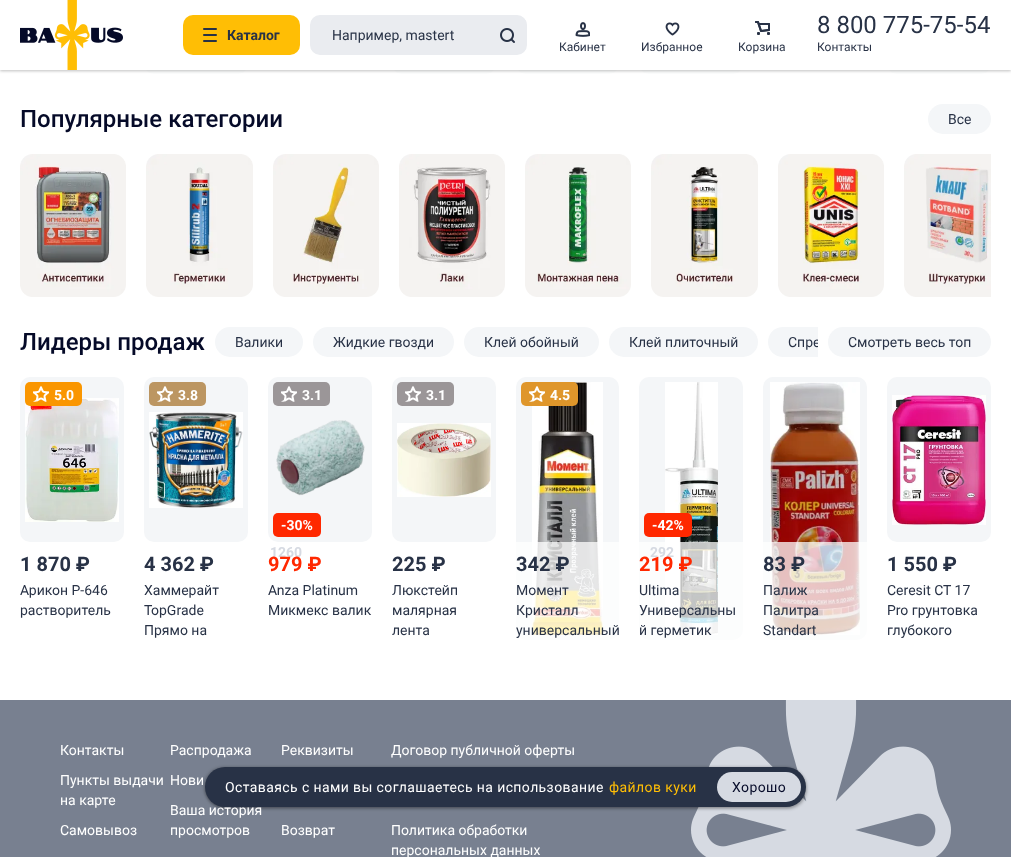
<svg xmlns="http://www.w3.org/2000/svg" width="1011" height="857">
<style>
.a{font:bold 14px Roboto;fill:#283246}
.b{font:14px Roboto;fill:#283246}
.c{font:12px Roboto;fill:#283246}
.d{font:24px Roboto;fill:#283246}
.e{font:500 24px Roboto;fill:#050a28}
.f{font:bold 14px Roboto;fill:#fff}
.g{font:bold 20px Roboto;fill:#283246}
.h{font:bold 14px Roboto;fill:#d6dae2}
.i{font:bold 20px Roboto;fill:#ff2800}
.j{font:14px Roboto;fill:#fff}
.k{font:14px Roboto;letter-spacing:0.4px;fill:#fff}
.l{font:14px Roboto;letter-spacing:0.4px;fill:#ffbe05}
.m{font:14px Roboto;letter-spacing:0.4px;fill:#050a28}
</style>
<defs>
<clipPath id="clip1"><path d="M215 327h603v30H215z"/></clipPath>
</defs>
<rect width="100%" height="100%" fill="#fff"/>
<rect fill="#fcfdfd" x="144" y="-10" width="104" height="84" rx="10"/>
<rect fill="#fcfdfd" x="392" y="-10" width="104" height="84" rx="10"/>
<rect fill="#fcfdfd" x="516" y="-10" width="103" height="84" rx="10"/>
<rect fill="#fcfdfd" x="639" y="-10" width="104" height="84" rx="10"/>
<rect fill="#fcfdfd" x="887" y="-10" width="104" height="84" rx="10"/>
<path fill="#00000040" filter="blur(1.5px)" d="M0 1h1011v70H0z"/>
<path fill="#fff" d="M0 0h1011v70H0z"/>
<image href="1.png" x="20" y="0" width="103" height="70"/>
<rect fill="#ffbe05" x="183" y="15" width="117" height="40" rx="10"/>
<image href="2.png" x="203" y="28" width="14" height="14"/>
<rect fill="#eaecf0" stroke="#eaecf0" stroke-width="2" x="311" y="16" width="215" height="38" rx="9"/>
<image href="3.png" x="500" y="28" width="15" height="15"/>
<image href="4.png" x="575" y="22" width="15" height="15"/>
<image href="5.png" x="665" y="22" width="15" height="14"/>
<image href="6.png" x="755" y="21" width="15" height="14"/>
<rect fill="#f4f6f8" x="928" y="104" width="63" height="30" rx="15"/>
<image href="7.png" x="20" y="154" width="106" height="143"/>
<image href="8.png" x="146" y="154" width="107" height="143"/>
<image href="9.png" x="273" y="154" width="106" height="143"/>
<image href="10.png" x="399" y="154" width="106" height="143"/>
<image href="11.png" x="525" y="154" width="106" height="143"/>
<image href="12.png" x="651" y="154" width="107" height="143"/>
<image href="13.png" x="778" y="154" width="106" height="143"/>
<image href="14.png" x="904" y="154" width="87" height="143"/>
<rect fill="#f4f6f8" x="215" y="327" width="88" height="30" rx="15"/>
<rect fill="#f4f6f8" x="313" y="327" width="141" height="30" rx="15"/>
<rect fill="#f4f6f8" x="464" y="327" width="135" height="30" rx="15"/>
<rect fill="#f4f6f8" x="609" y="327" width="149" height="30" rx="15"/>
<path fill="#f4f6f8" d="M783 327h35v30h-35c-8.5 0-15-6.5-15-15c0-8.5 6.5-15 15-15z"/>
<rect fill="#f4f6f8" x="828" y="327" width="163" height="30" rx="15"/>
<rect fill="#f4f6f8" x="20" y="377" width="104" height="165" rx="10"/>
<image href="15.png" x="25" y="398" width="94" height="124"/>
<rect fill="#fa9600" x="25" y="382" width="57" height="24" rx="5"/>
<image href="16.png" x="33" y="386" width="16" height="16"/>
<rect fill="#f4f6f8" x="144" y="377" width="104" height="165" rx="10"/>
<image href="17.png" x="149" y="412" width="94" height="96"/>
<rect fill="#bc9662" x="149" y="382" width="57" height="24" rx="5"/>
<image href="18.png" x="157" y="386" width="16" height="16"/>
<rect fill="#f4f6f8" x="268" y="377" width="104" height="165" rx="10"/>
<rect fill="#9b9698" x="273" y="382" width="57" height="24" rx="5"/>
<image href="19.png" x="281" y="386" width="16" height="16"/>
<image href="20.png" x="276" y="420" width="89" height="76"/>
<rect fill="#ff2800" x="273" y="513" width="48" height="24" rx="5"/>
<rect fill="#f4f6f8" x="392" y="377" width="104" height="165" rx="10"/>
<image href="21.png" x="397" y="423" width="94" height="74"/>
<rect fill="#9b9698" x="397" y="382" width="57" height="24" rx="5"/>
<image href="19.png" x="405" y="386" width="16" height="16"/>
<rect fill="#f4f6f8" x="516" y="377" width="103" height="263" rx="10"/>
<image href="22.png" x="532" y="382" width="71" height="253"/>
<rect fill="#df962b" x="521" y="382" width="57" height="24" rx="5"/>
<image href="23.png" x="529" y="386" width="16" height="16"/>
<path fill="#ffffffbf" d="M516 542h103v98H516z"/>
<rect fill="#f4f6f8" x="639" y="377" width="104" height="263" rx="10"/>
<image href="24.png" x="665" y="382" width="53" height="253"/>
<rect fill="#ff2800" x="644" y="513" width="48" height="24" rx="5"/>
<path fill="#ffffffbf" d="M639 542h104v98H639z"/>
<rect fill="#f4f6f8" x="763" y="377" width="104" height="263" rx="10"/>
<image href="25.png" x="770" y="382" width="90" height="253"/>
<path fill="#ffffffbf" d="M763 542h104v98H763z"/>
<rect fill="#f4f6f8" x="887" y="377" width="104" height="165" rx="10"/>
<image href="26.png" x="892" y="395" width="94" height="130"/>
<path fill="#788090" d="M0 700h1011v157H0z"/>
<image href="27.png" x="691" y="700" width="260" height="157"/>
<rect fill="#00000040" filter="blur(1.5px)" x="206" y="769" width="601" height="40" rx="20"/>
<rect fill="#00000040" filter="blur(1.5px)" x="204" y="767" width="601" height="40" rx="20"/>
<text class="a" x="227" y="40">Каталог</text>
<text class="b" x="332" y="40">Например, mastert</text>
<text class="c" x="559" y="51">Кабинет</text>
<text class="c" x="641" y="51">Избранное</text>
<text class="c" x="738" y="51">Корзина</text>
<text class="d" x="817" y="33">8 800 775-75-54</text>
<text class="c" x="817" y="51">Контакты</text>
<text class="e" x="20" y="127">Популярные категории</text>
<text class="b" x="948" y="124">Все</text>
<text class="e" x="20" y="350">Лидеры продаж</text>
<text class="b" x="235" y="347">Валики</text>
<text class="b" x="333" y="347">Жидкие гвозди</text>
<text class="b" x="484" y="347">Клей обойный</text>
<text class="b" x="629" y="347">Клей плиточный</text>
<g clip-path="url(#clip1)">
<text class="b" x="788" y="347">Спре</text>
</g>
<text class="b" x="848" y="347">Смотреть весь топ</text>
<text class="f" x="54" y="400">5.0</text>
<text class="g" x="20" y="571">1 870 ₽</text>
<text class="b" x="20" y="595">Арикон Р-646</text>
<text class="b" x="20" y="615">растворитель</text>
<text class="f" x="178" y="400">3.8</text>
<text class="g" x="144" y="571">4 362 ₽</text>
<text class="b" x="144" y="595">Хаммерайт</text>
<text class="b" x="144" y="615">TopGrade</text>
<text class="b" x="144" y="635">Прямо на</text>
<text class="f" x="302" y="400">3.1</text>
<text class="f" x="281" y="530">-30%</text>
<text class="h" x="270" y="557">1260</text>
<text class="i" x="268" y="571">979 ₽</text>
<text class="b" x="268" y="595">Anza Platinum</text>
<text class="b" x="268" y="615">Микмекс валик</text>
<text class="f" x="426" y="400">3.1</text>
<text class="g" x="392" y="571">225 ₽</text>
<text class="b" x="392" y="595">Люкстейп</text>
<text class="b" x="392" y="615">малярная</text>
<text class="b" x="392" y="635">лента</text>
<text class="f" x="550" y="400">4.5</text>
<text class="g" x="516" y="571">342 ₽</text>
<text class="b" x="516" y="595">Момент</text>
<text class="b" x="516" y="615">Кристалл</text>
<text class="b" x="516" y="635">универсальный</text>
<text class="f" x="652" y="530">-42%</text>
<text class="h" x="650" y="557">292</text>
<text class="i" x="639" y="571">219 ₽</text>
<text class="b" x="639" y="595">Ultima</text>
<text class="b" x="639" y="615">Универсальны</text>
<text class="b" x="639" y="635">й герметик</text>
<text class="g" x="763" y="571">83 ₽</text>
<text class="b" x="763" y="595">Палиж</text>
<text class="b" x="763" y="615">Палитра</text>
<text class="b" x="763" y="635">Standart</text>
<text class="g" x="887" y="571">1 550 ₽</text>
<text class="b" x="887" y="595">Ceresit CT 17</text>
<text class="b" x="887" y="615">Pro грунтовка</text>
<text class="b" x="887" y="635">глубокого</text>
<text class="j" x="60" y="755">Контакты</text>
<text class="j" x="60" y="785">Пункты выдачи</text>
<text class="j" x="60" y="805">на карте</text>
<text class="j" x="60" y="835">Самовывоз</text>
<text class="j" x="170" y="755">Распродажа</text>
<text class="j" x="170" y="785">Нови</text>
<text class="j" x="170" y="815">Ваша история</text>
<text class="j" x="170" y="835">просмотров</text>
<text class="j" x="281" y="755">Реквизиты</text>
<text class="j" x="281" y="835">Возврат</text>
<text class="j" x="391" y="755">Договор публичной оферты</text>
<text class="j" x="391" y="835">Политика обработки</text>
<text class="j" x="391" y="855">персональных данных</text>
<rect fill="#283246" x="205" y="767" width="601" height="40" rx="20"/>
<text class="k" x="225" y="792">Оставаясь с нами вы соглашаетесь на использование</text>
<text class="l" x="609" y="792">файлов куки</text>
<rect fill="#d6dae2" x="717" y="772" width="84" height="30" rx="15"/>
<text class="m" x="732" y="792">Хорошо</text>
</svg>
